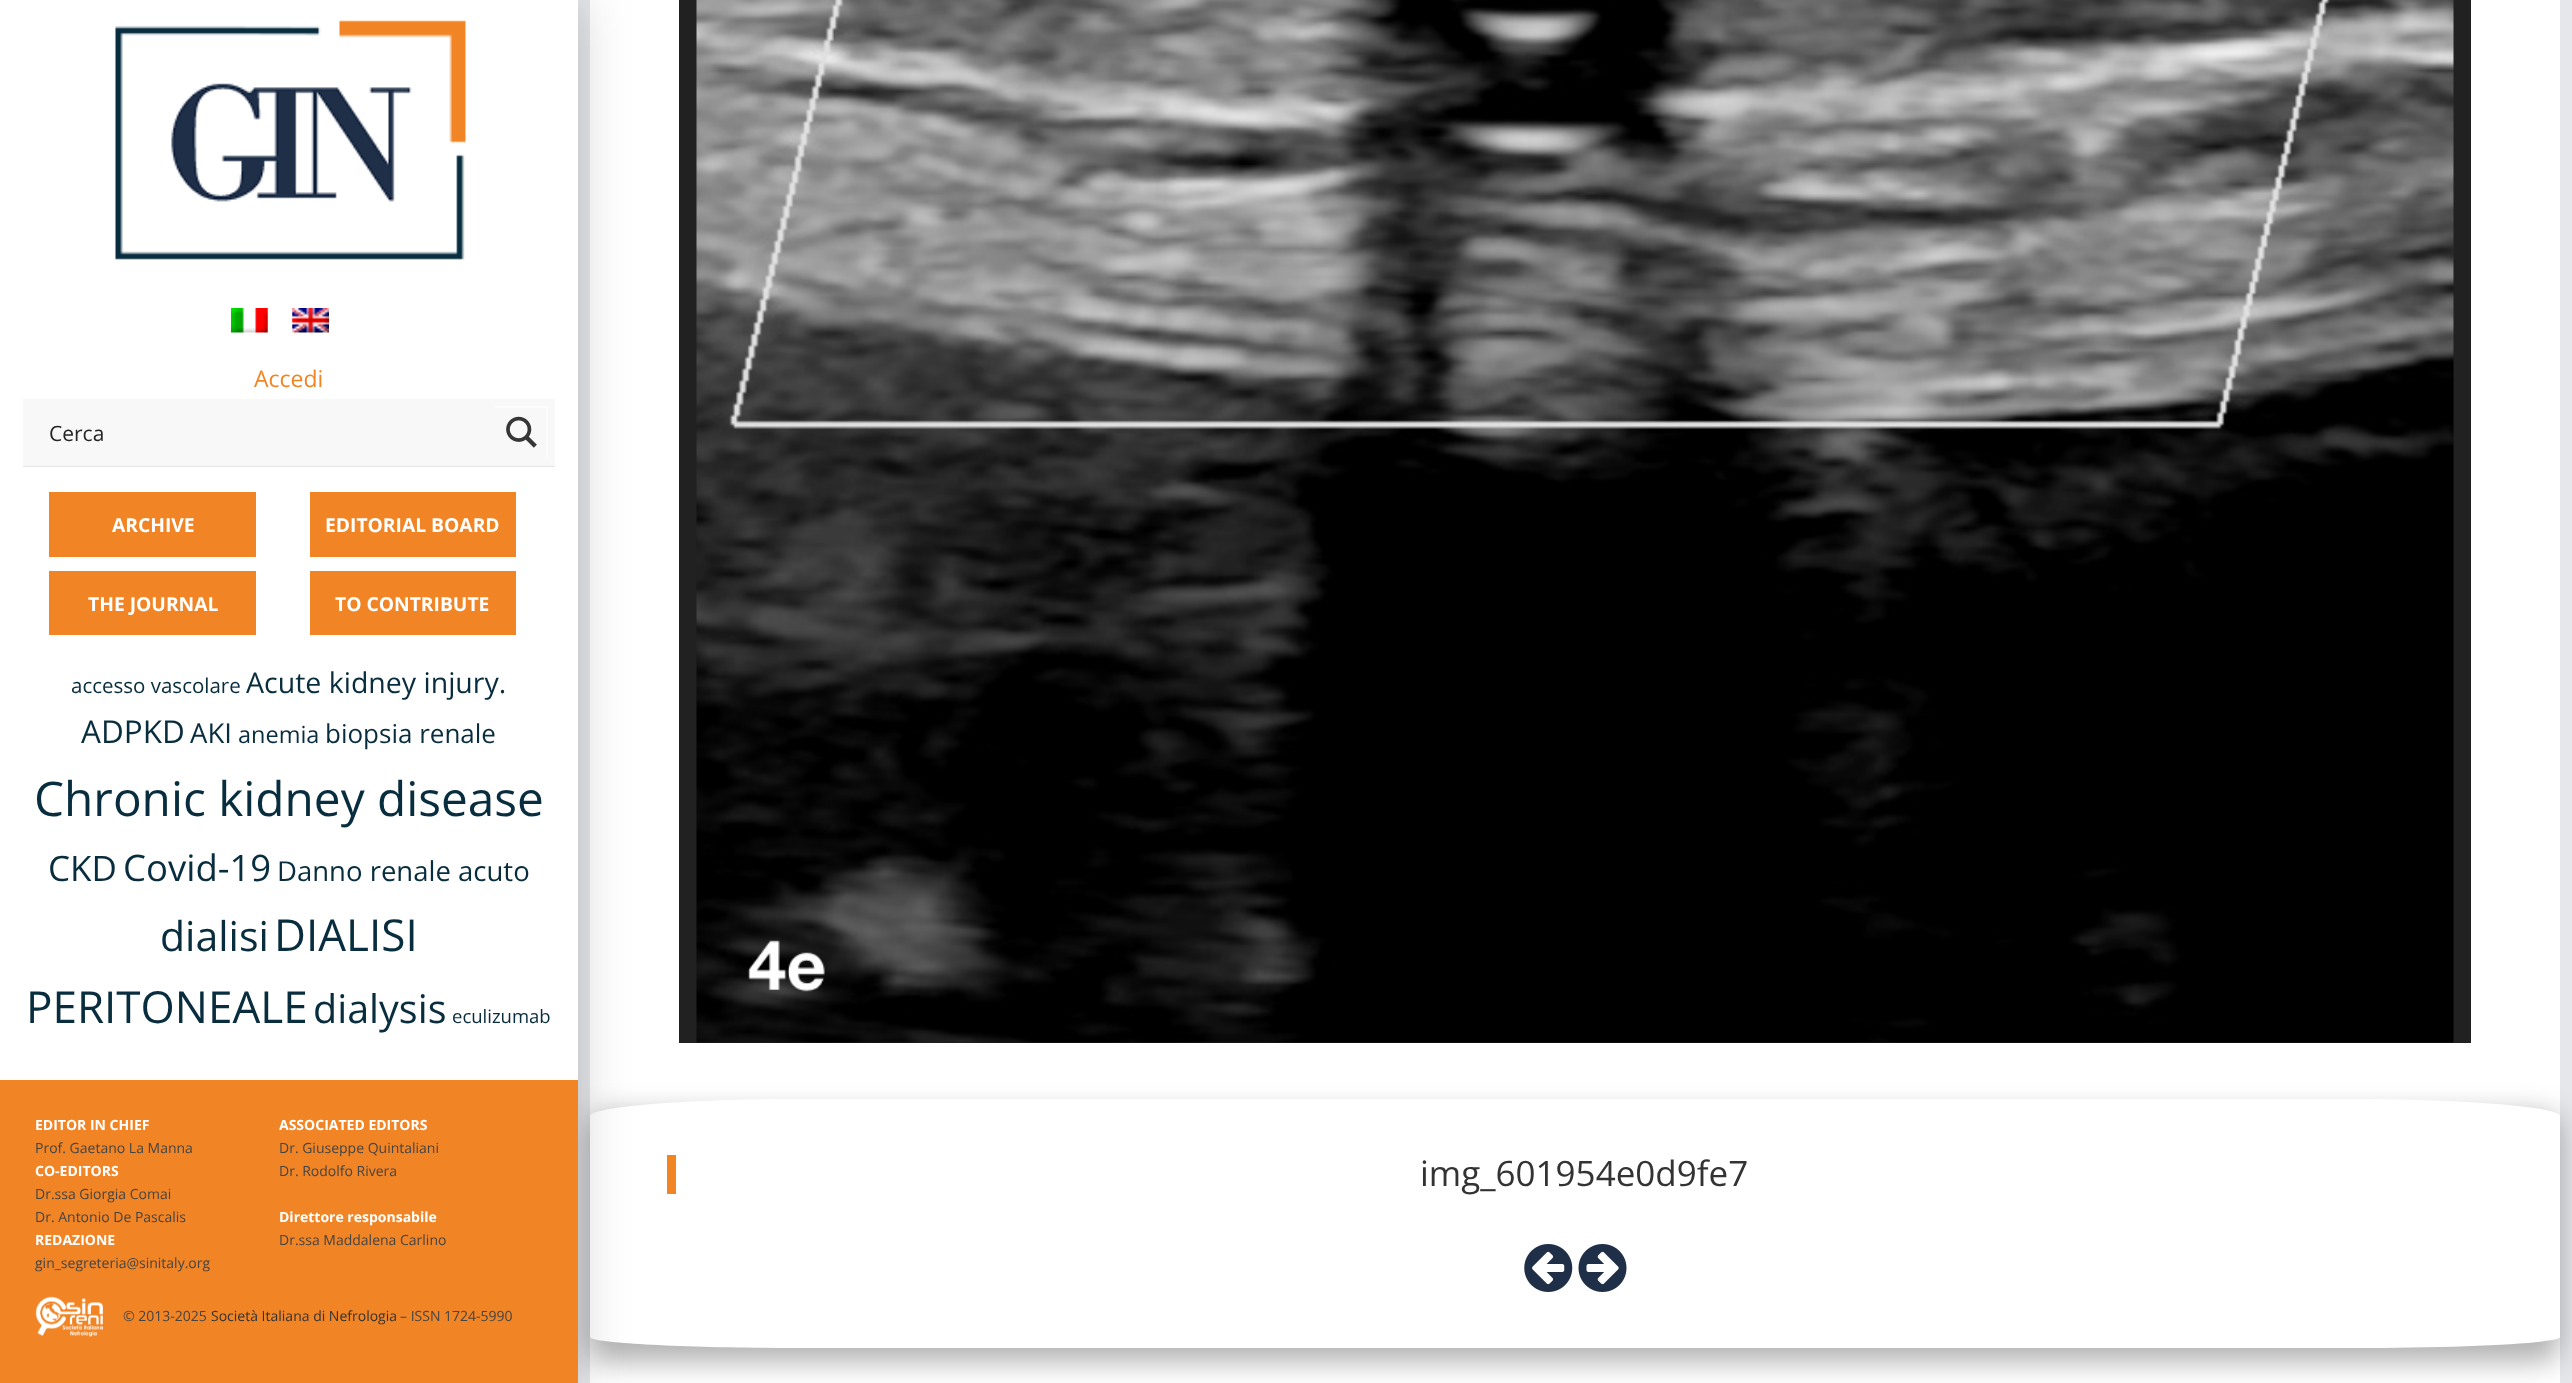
<svg xmlns="http://www.w3.org/2000/svg" width="2572" height="1383">
<style>
.a{font:23px Open Sans;fill:#f18525}
.b{font:21px Open Sans;fill:#252525}
.c{font:bold 19.25px Open Sans;fill:#fff}
.d{font:20.5px Open Sans;fill:#082d3e}
.e{font:28.5px Open Sans;fill:#082d3e}
.f{font:31.5px Open Sans;fill:#082d3e}
.g{font:27.5px Open Sans;fill:#082d3e}
.h{font:23.5px Open Sans;fill:#082d3e}
.i{font:26px Open Sans;fill:#082d3e}
.j{font:47.75px Open Sans;fill:#082d3e}
.k{font:35px Open Sans;fill:#082d3e}
.l{font:36.5px Open Sans;fill:#082d3e}
.m{font:41px Open Sans;fill:#082d3e}
.n{font:44px Open Sans;fill:#082d3e}
.o{font:39.5px Open Sans;fill:#082d3e}
.p{font:18.5px Open Sans;fill:#082d3e}
.q{font:bold 14px Open Sans;fill:#fff}
.r{font:14px Open Sans;fill:#444}
.s{font:14px Open Sans;fill:#333}
.t{font:35px Open Sans;fill:#333}
</style>
<defs>
<clipPath id="clip1"><path d="M495 406h53v53H495z"/></clipPath>
</defs>
<rect width="100%" height="100%" fill="#e5e7ea"/>
<path fill="#fff" d="M590 0h1970v1383H590z"/>
<rect fill="#0000004d" filter="blur(14px)" x="590" y="1113" width="1970" height="249" rx="18"/>
<path fill="#fff" d="M800 1099h1550c116 0 210 8 210 17v221c0 6-94 11-210 11h-1550c-116 0-210-5-210-11v-221c0-9 94-17 210-17z"/>
<path fill="#00000033" filter="blur(26px)" d="M0 0h578v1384H0z"/>
<path fill="#fff" d="M0 0h578v1080H0z"/>
<image href="1.png" x="115" y="20" width="351" height="240"/>
<image href="2.png" x="231" y="308" width="37" height="25"/>
<image href="3.png" x="292" y="308" width="37" height="25"/>
<path fill="#e4e4e4" d="M23 466v1h532v-66v65z"/>
<path fill="#f8f8f8" d="M23 399h532v67H23z"/>
<g clip-path="url(#clip1)">
<path fill="#fcfcfc" fill-rule="evenodd" d="M322 233h399v399h-399zm172 175h52v52h-52z"/>
</g>
<image href="4.png" x="506" y="416" width="31" height="32"/>
<path fill="#f18525" d="M49 492h207v65H49z"/>
<path fill="#f18525" d="M310 492h206v65H310z"/>
<path fill="#f18525" d="M49 571h207v64H49z"/>
<path fill="#f18525" d="M310 571h206v64H310z"/>
<path fill="#f18525" d="M0 1080h578v303H0z"/>
<image href="5.png" x="35" y="1296" width="68" height="41"/>
<path fill="#212121" d="M679 0h1792v1043H679z"/>
<image href="6.png" x="696" y="0" width="1758" height="1043"/>
<path fill="#f18525" d="M667 1155h9v39H667z"/>
<image href="7.png" x="1524" y="1244" width="49" height="48"/>
<image href="8.png" x="1578" y="1244" width="49" height="48"/>
<text class="a" x="254" y="387">Accedi</text>
<text class="b" x="49" y="441">Cerca</text>
<text class="c" x="112" y="532">ARCHIVE</text>
<text class="c" x="325" y="532">EDITORIAL BOARD</text>
<text class="c" x="88" y="611">THE JOURNAL</text>
<text class="c" x="335" y="611">TO CONTRIBUTE</text>
<text class="d" x="71" y="693">accesso vascolare</text>
<text class="e" x="246" y="693">Acute kidney injury.</text>
<text class="f" x="81" y="743">ADPKD</text>
<text class="g" x="190" y="743">AKI</text>
<text class="h" x="238" y="743">anemia</text>
<text class="i" x="325" y="743">biopsia renale</text>
<text class="j" x="34" y="816">Chronic kidney disease</text>
<text class="k" x="48" y="881">CKD</text>
<text class="l" x="123" y="881">Covid-19</text>
<text class="g" x="277" y="881">Danno renale acuto</text>
<text class="m" x="160" y="951">dialisi</text>
<text class="n" x="274" y="951">DIALISI</text>
<text class="n" x="26" y="1023">PERITONEALE</text>
<text class="o" x="313" y="1023">dialysis</text>
<text class="p" x="452" y="1023">eculizumab</text>
<text class="q" x="35" y="1130">EDITOR IN CHIEF</text>
<text class="r" x="35" y="1153">Prof. Gaetano La Manna</text>
<text class="q" x="35" y="1176">CO-EDITORS</text>
<text class="r" x="35" y="1199">Dr.ssa Giorgia Comai</text>
<text class="r" x="35" y="1222">Dr. Antonio De Pascalis</text>
<text class="q" x="35" y="1245">REDAZIONE</text>
<text class="r" x="35" y="1268">gin_segreteria@sinitaly.org</text>
<text class="q" x="279" y="1130">ASSOCIATED EDITORS</text>
<text class="r" x="279" y="1153">Dr. Giuseppe Quintaliani</text>
<text class="r" x="279" y="1176">Dr. Rodolfo Rivera</text>
<text class="q" x="279" y="1222">Direttore responsabile</text>
<text class="r" x="279" y="1245">Dr.ssa Maddalena Carlino</text>
<text class="r" x="123" y="1321">© 2013-2025</text>
<text class="s" x="211" y="1321">Società Italiana di Nefrologia</text>
<text class="r" x="400" y="1321">– ISSN 1724-5990</text>
<text class="t" x="1420" y="1186">img_601954e0d9fe7</text>
</svg>
